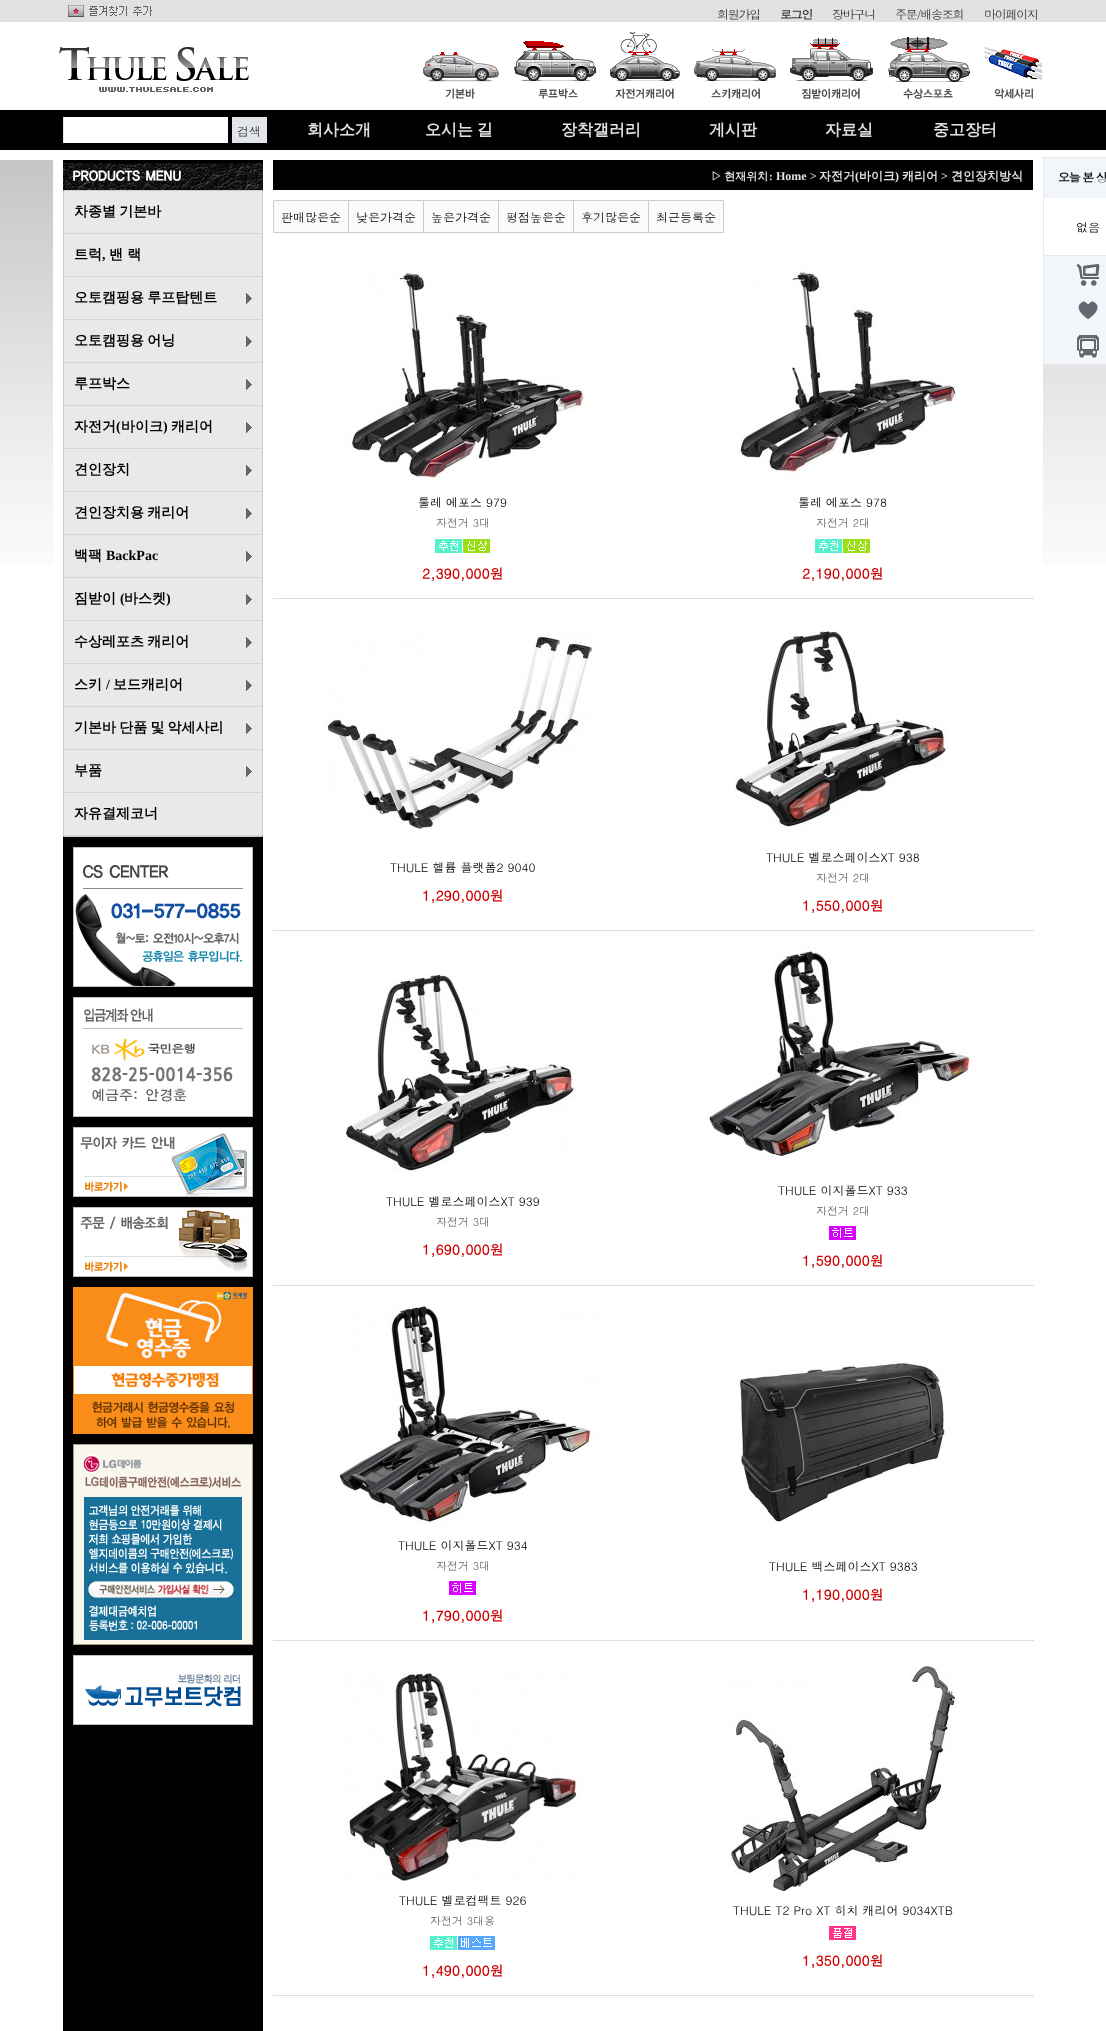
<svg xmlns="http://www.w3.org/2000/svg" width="1106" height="2031">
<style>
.a{font:12px Dotum;letter-spacing:-1.25px;fill:#333}
.b{font:bold 12px Dotum;letter-spacing:-1.25px;fill:#333}
.c{font:12px Dotum;fill:#333}
.d{font:bold 16px WenQuanYi Zen Hei;fill:#e1e1e1}
.e{font:bold 14px WenQuanYi Zen Hei;fill:#000}
.f{font:bold 14px Liberation Serif;fill:#000}
.g{font:bold 11px WenQuanYi Zen Hei;fill:#e1e1e1}
.h{font:bold 11px Liberation Serif;fill:#e1e1e1}
.i{font:bold 12px Liberation Serif;fill:#e1e1e1}
.j{font:bold 12px WenQuanYi Zen Hei;fill:#e1e1e1}
.k{font:12px Dotum;fill:#000}
.l{font:11px Dotum;fill:#666}
.m{font:bold 14px Dotum;fill:#c00}
.n{font:bold 12px Dotum;letter-spacing:-1.25px;fill:#000}
</style>
<rect width="100%" height="100%" fill="#fff"/>
<image href="1.png" x="0" y="160" width="1106" height="405"/>
<path fill="#e1e1e1" d="M0 0h1106v22H0z"/>
<image href="2.png" x="68" y="5" width="84" height="12"/>
<image href="3.png" x="59" y="47" width="190" height="45"/>
<image href="4.png" x="423" y="52" width="76" height="47"/>
<image href="5.png" x="514" y="41" width="82" height="58"/>
<image href="6.png" x="610" y="32" width="70" height="67"/>
<image href="7.png" x="694" y="49" width="82" height="50"/>
<image href="8.png" x="790" y="38" width="83" height="61"/>
<image href="9.png" x="888" y="37" width="82" height="62"/>
<image href="10.png" x="984" y="46" width="58" height="53"/>
<path fill="#000" d="M0 110h1106v40H0z"/>
<path fill="#e1e1e1" d="M266 117h1v26H266z"/>
<path fill="#e1e1e1" d="M63 117h1v26H63z"/>
<path fill="#fff" d="M64 117h164v26H64z"/>
<path fill="#e2e6eb" d="M232 117h34v26H232z"/>
<path fill="#fff" d="M53 160h10v405H53z"/>
<path fill="#fff" d="M263 160h780v405H263z"/>
<path fill="#000" d="M63 160h200v1871H63z"/>
<image href="11.png" x="63" y="163" width="200" height="27"/>
<path fill="#e9e9e9" d="M64 191h198v644H64z"/>
<path fill="none" stroke="#cbcbcb" d="M63.5 190.5h199v646H63.5z"/>
<path fill="#d5d5d5" d="M64 233h198v1H64z"/>
<path fill="#d5d5d5" d="M64 276h198v1H64z"/>
<image href="12.png" x="246" y="293" width="6" height="11"/>
<path fill="#d5d5d5" d="M64 319h198v1H64z"/>
<image href="12.png" x="246" y="336" width="6" height="11"/>
<path fill="#d5d5d5" d="M64 362h198v1H64z"/>
<image href="12.png" x="246" y="379" width="6" height="11"/>
<path fill="#d5d5d5" d="M64 405h198v1H64z"/>
<image href="12.png" x="246" y="422" width="6" height="11"/>
<path fill="#d5d5d5" d="M64 448h198v1H64z"/>
<image href="12.png" x="246" y="465" width="6" height="11"/>
<path fill="#d5d5d5" d="M64 491h198v1H64z"/>
<image href="12.png" x="246" y="508" width="6" height="11"/>
<path fill="#d5d5d5" d="M64 534h198v1H64z"/>
<image href="12.png" x="246" y="551" width="6" height="11"/>
<path fill="#d5d5d5" d="M64 577h198v1H64z"/>
<image href="12.png" x="246" y="594" width="6" height="11"/>
<path fill="#d5d5d5" d="M64 620h198v1H64z"/>
<image href="12.png" x="246" y="637" width="6" height="11"/>
<path fill="#d5d5d5" d="M64 663h198v1H64z"/>
<image href="12.png" x="246" y="680" width="6" height="11"/>
<path fill="#d5d5d5" d="M64 706h198v1H64z"/>
<image href="12.png" x="246" y="723" width="6" height="11"/>
<path fill="#d5d5d5" d="M64 749h198v1H64z"/>
<image href="12.png" x="246" y="766" width="6" height="11"/>
<path fill="#d5d5d5" d="M64 792h198v1H64z"/>
<path fill="#d5d5d5" d="M64 835h198v1H64z"/>
<image href="13.png" x="73" y="847" width="180" height="140"/>
<image href="14.png" x="73" y="997" width="180" height="120"/>
<image href="15.png" x="73" y="1127" width="180" height="70"/>
<image href="16.png" x="73" y="1207" width="180" height="70"/>
<image href="17.png" x="73" y="1287" width="180" height="147"/>
<image href="18.png" x="73" y="1444" width="180" height="201"/>
<image href="19.png" x="73" y="1655" width="180" height="70"/>
<path fill="#000" d="M273 160h760v30H273z"/>
<path fill="#fafafa" stroke="#ccc" d="M273.5 200.5h75v32H273.5z"/>
<path fill="#fafafa" stroke="#ccc" d="M348.5 200.5h75v32H348.5z"/>
<path fill="#fafafa" stroke="#ccc" d="M423.5 200.5h75v32H423.5z"/>
<path fill="#fafafa" stroke="#ccc" d="M498.5 200.5h75v32H498.5z"/>
<path fill="#fafafa" stroke="#ccc" d="M573.5 200.5h75v32H573.5z"/>
<path fill="#fafafa" stroke="#ccc" d="M648.5 200.5h75v32H648.5z"/>
<image href="20.png" x="346" y="270" width="239" height="212"/>
<image href="21.png" x="435" y="539" width="27" height="14"/>
<image href="22.png" x="463" y="539" width="27" height="14"/>
<path fill="#ddd" d="M273 598h761v1H273z"/>
<image href="23.png" x="734" y="266" width="223" height="214"/>
<image href="21.png" x="815" y="539" width="27" height="14"/>
<image href="22.png" x="843" y="539" width="27" height="14"/>
<image href="24.png" x="323" y="632" width="270" height="199"/>
<path fill="#ddd" d="M273 930h761v1H273z"/>
<image href="25.png" x="733" y="629" width="216" height="200"/>
<image href="26.png" x="345" y="973" width="232" height="200"/>
<path fill="#ddd" d="M273 1285h761v1H273z"/>
<image href="27.png" x="709" y="946" width="270" height="215"/>
<image href="28.png" x="829" y="1226" width="27" height="14"/>
<image href="29.png" x="337" y="1302" width="264" height="223"/>
<image href="28.png" x="449" y="1581" width="27" height="14"/>
<path fill="#ddd" d="M273 1640h761v1H273z"/>
<image href="30.png" x="734" y="1362" width="215" height="160"/>
<image href="31.png" x="345" y="1672" width="240" height="209"/>
<image href="21.png" x="430" y="1936" width="27" height="14"/>
<image href="32.png" x="458" y="1936" width="37" height="14"/>
<path fill="#ddd" d="M273 1995h761v1H273z"/>
<image href="33.png" x="726" y="1666" width="230" height="225"/>
<image href="34.png" x="829" y="1926" width="27" height="14"/>
<path fill="#fff" d="M1044 198h62v57H1044z"/>
<path fill="none" stroke="#e9e9e9" d="M1043.5 157.5h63v207H1043.5z"/>
<path fill="#f2f5f9" d="M1044 158h62v40H1044z"/>
<path fill="#f2f5f9" d="M1044 256h62v108H1044z"/>
<path fill="#e9e9e9" d="M1044 255h62v1H1044z"/>
<image href="35.png" x="1076" y="263" width="24" height="23"/>
<image href="36.png" x="1078" y="301" width="20" height="19"/>
<image href="37.png" x="1077" y="335" width="22" height="23"/>
<text class="a" x="717" y="19">회원가입</text>
<text class="b" x="780" y="19">로그인</text>
<text class="a" x="832" y="19">장바구니</text>
<text class="a" x="895" y="19">주문/배송조회</text>
<text class="a" x="984" y="19">마이페이지</text>
<text class="c" x="237" y="136">검색</text>
<text class="d" x="307" y="135">회사소개</text>
<text class="d" x="425" y="135" word-spacing="-1">오시는 길</text>
<text class="d" x="561" y="135">장착갤러리</text>
<text class="d" x="709" y="135">게시판</text>
<text class="d" x="825" y="135">자료실</text>
<text class="d" x="933" y="135">중고장터</text>
<text class="e" x="74" y="216" word-spacing="-1">차종별 기본바</text>
<text class="e" x="74" y="259">트럭</text>
<text class="f" x="102" y="259">,</text>
<text class="e" x="109" y="259">밴 랙</text>
<text class="e" x="74" y="302" word-spacing="-1">오토캠핑용 루프탑텐트</text>
<text class="e" x="74" y="345" word-spacing="-1">오토캠핑용 어닝</text>
<text class="e" x="74" y="388">루프박스</text>
<text class="e" x="74" y="431">자전거</text>
<text class="f" x="116" y="431">(</text>
<text class="e" x="121" y="431">바이크</text>
<text class="f" x="163" y="431">)</text>
<text class="e" x="171" y="431">캐리어</text>
<text class="e" x="74" y="474">견인장치</text>
<text class="e" x="74" y="517" word-spacing="-1">견인장치용 캐리어</text>
<text class="e" x="74" y="560">백팩</text>
<text class="f" x="106" y="560">BackPac</text>
<text class="e" x="74" y="603">짐받이</text>
<text class="f" x="120" y="603">(</text>
<text class="e" x="124" y="603">바스켓</text>
<text class="f" x="166" y="603">)</text>
<text class="e" x="74" y="646" word-spacing="-1">수상레포츠 캐리어</text>
<text class="e" x="74" y="689">스키</text>
<text class="f" x="106" y="689">/</text>
<text class="e" x="113" y="689">보드캐리어</text>
<text class="e" x="74" y="732" word-spacing="-1">기본바 단품 및 악세사리</text>
<text class="e" x="74" y="775">부품</text>
<text class="e" x="74" y="818">자유결제코너</text>
<text class="g" x="711" y="180" word-spacing="-1">▷ 현재위치</text>
<text class="h" x="769" y="180">:</text>
<text class="i" x="776" y="180">Home &gt;</text>
<text class="j" x="819" y="180">자전거</text>
<text class="i" x="855" y="180">(</text>
<text class="j" x="859" y="180">바이크</text>
<text class="i" x="895" y="180">)</text>
<text class="j" x="902" y="180">캐리어</text>
<text class="i" x="941" y="180">&gt;</text>
<text class="j" x="951" y="180">견인장치방식</text>
<text class="k" x="281" y="222">판매많은순</text>
<text class="k" x="356" y="222">낮은가격순</text>
<text class="k" x="431" y="222">높은가격순</text>
<text class="k" x="506" y="222">평점높은순</text>
<text class="k" x="581" y="222">후기많은순</text>
<text class="k" x="656" y="222">최근등록순</text>
<text class="k" x="418" y="507">툴레 에포스 979</text>
<text class="l" x="436" y="527">자전거 3대</text>
<text class="m" x="422" y="579">2,390,000원</text>
<text class="k" x="798" y="507">툴레 에포스 978</text>
<text class="l" x="816" y="527">자전거 2대</text>
<text class="m" x="802" y="579">2,190,000원</text>
<text class="k" x="390" y="872">THULE 헬륨 플랫폼2 9040</text>
<text class="m" x="422" y="901">1,290,000원</text>
<text class="k" x="766" y="862">THULE 벨로스페이스XT 938</text>
<text class="l" x="816" y="882">자전거 2대</text>
<text class="m" x="802" y="911">1,550,000원</text>
<text class="k" x="386" y="1206">THULE 벨로스페이스XT 939</text>
<text class="l" x="436" y="1226">자전거 3대</text>
<text class="m" x="422" y="1255">1,690,000원</text>
<text class="k" x="778" y="1195">THULE 이지폴드XT 933</text>
<text class="l" x="816" y="1215">자전거 2대</text>
<text class="m" x="802" y="1266">1,590,000원</text>
<text class="k" x="398" y="1550">THULE 이지폴드XT 934</text>
<text class="l" x="436" y="1570">자전거 3대</text>
<text class="m" x="422" y="1621">1,790,000원</text>
<text class="k" x="769" y="1571">THULE 백스페이스XT 9383</text>
<text class="m" x="802" y="1600">1,190,000원</text>
<text class="k" x="399" y="1905">THULE 벨로컴팩트 926</text>
<text class="l" x="430" y="1925">자전거 3대용</text>
<text class="m" x="422" y="1976">1,490,000원</text>
<text class="k" x="733" y="1915">THULE T2 Pro XT 히치 캐리어 9034XTB</text>
<text class="m" x="802" y="1966">1,350,000원</text>
<text class="n" x="1058" y="182">오늘 본 상</text>
<text class="k" x="1076" y="232">없음</text>
</svg>
